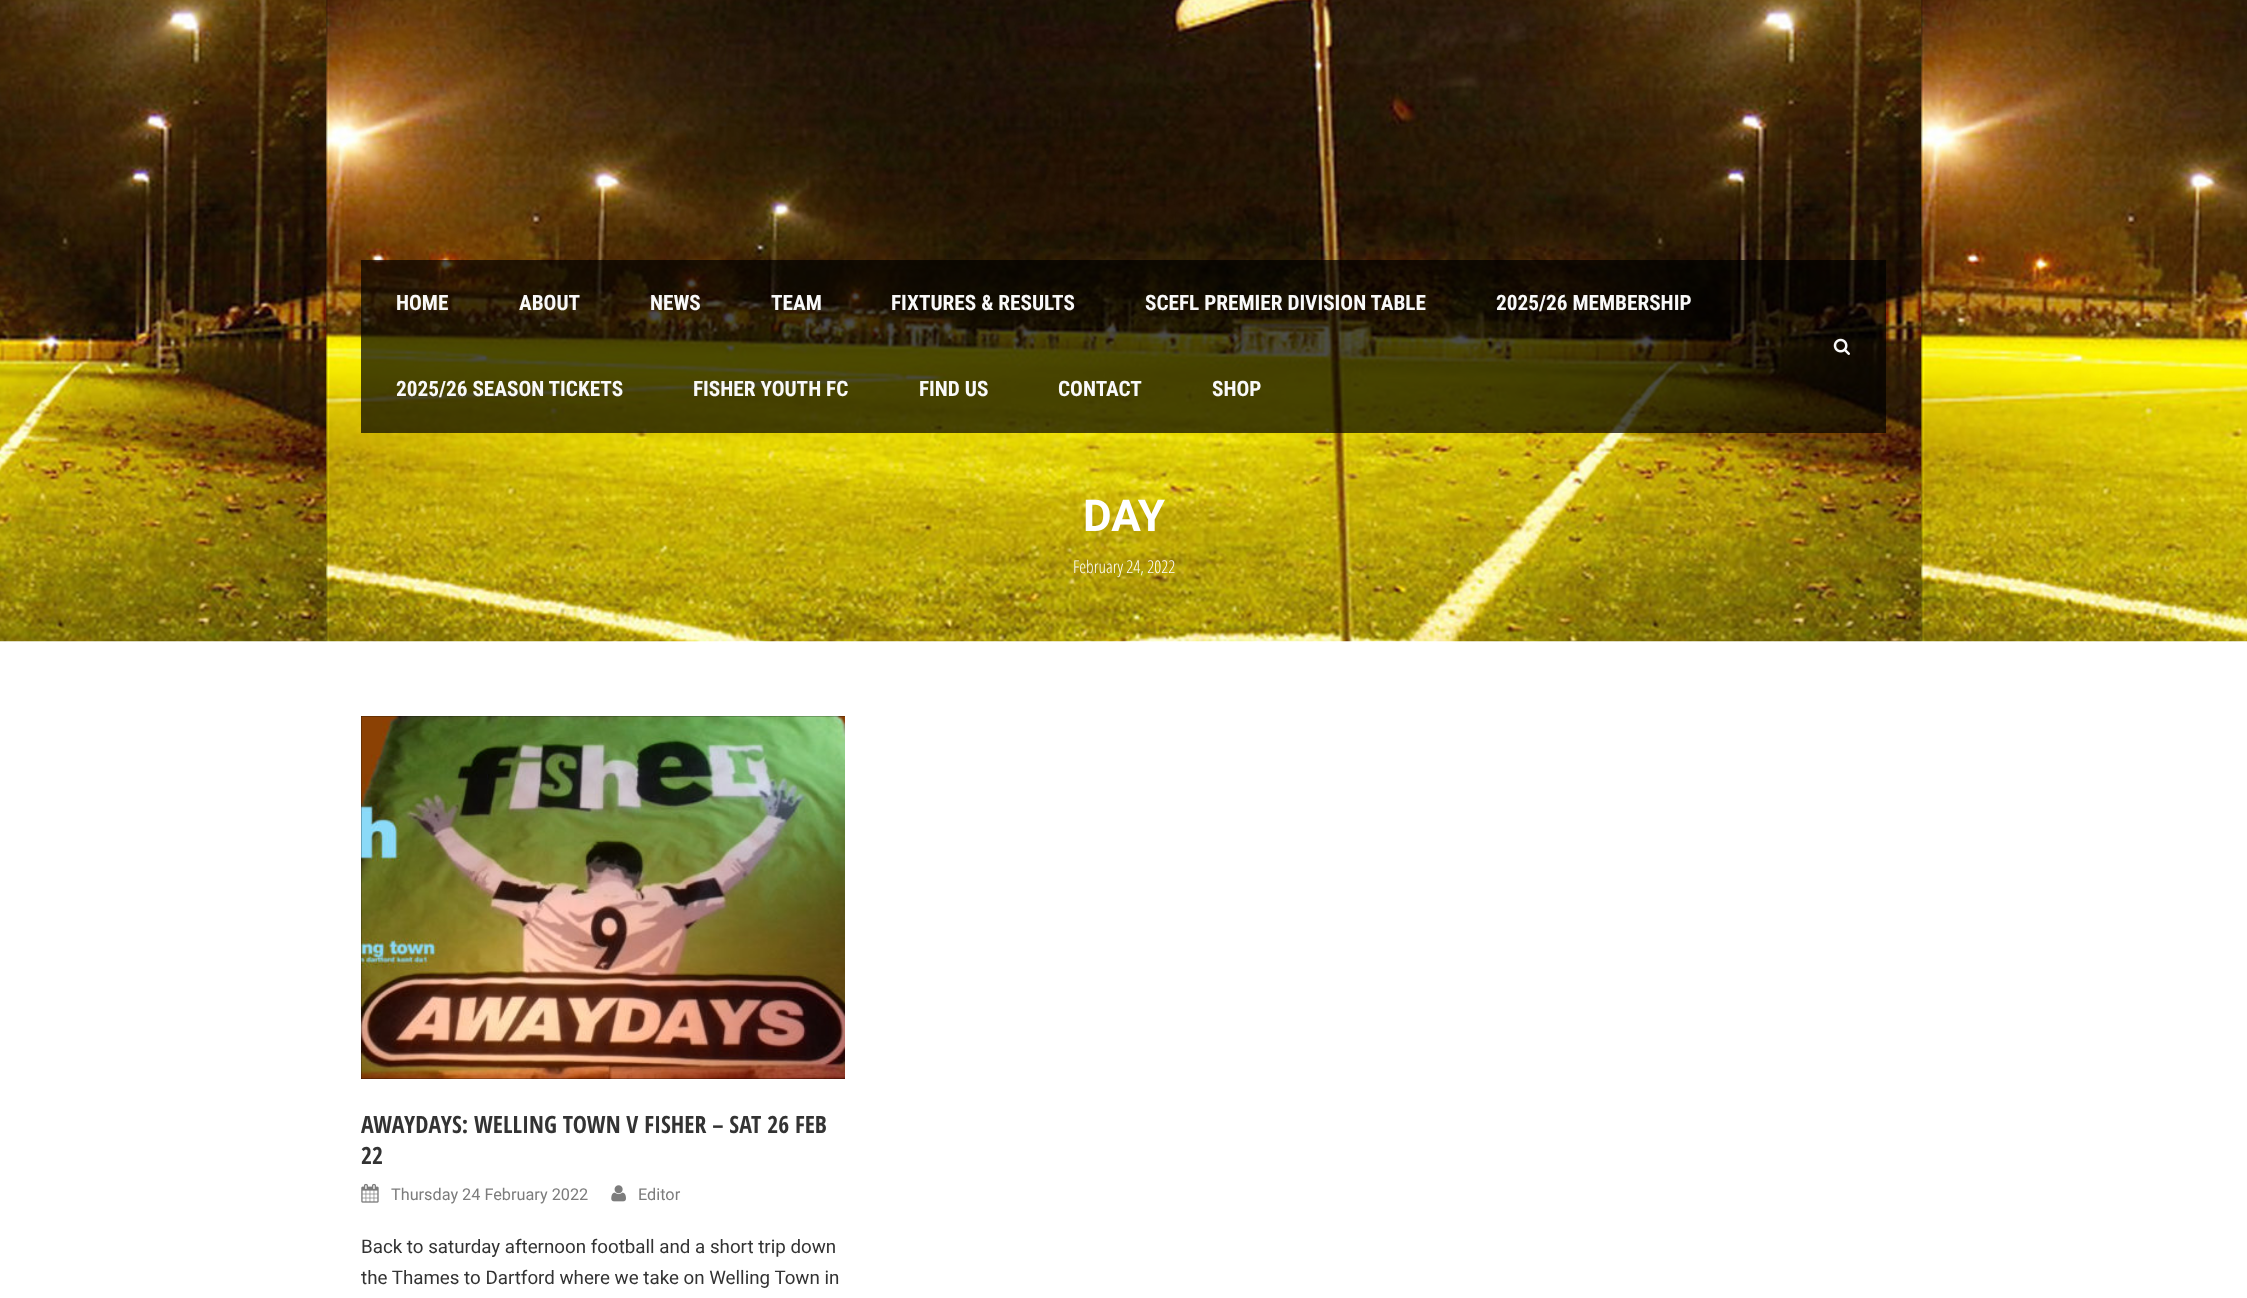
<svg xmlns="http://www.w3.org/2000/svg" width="2247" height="1298">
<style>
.a{font:bold 21.25px Roboto Condensed;fill:#f9f9f9}
.b{font:bold 44px Roboto;fill:#fff}
.c{font:300 17.5px Open Sans Condensed;fill:#fff}
.d{font:bold 23.75px Open Sans Condensed;fill:#333}
.e{font:16.25px Roboto;fill:#7c7c7c}
.f{font:18.75px Roboto;fill:#333}
</style>
<rect width="100%" height="100%" fill="#fff"/>
<image href="1.png" x="0" y="0" width="2247" height="642"/>
<path fill="#000000b3" d="M361 260h1525v173H361z"/>
<image href="2.png" x="1833" y="338" width="17" height="17"/>
<path fill="#000" d="M361 716h484v363H361z"/>
<image href="3.png" x="361" y="716" width="484" height="363"/>
<image href="4.png" x="361" y="1183" width="18" height="20"/>
<image href="5.png" x="611" y="1185" width="15" height="17"/>
<text class="a" x="396" y="310">HOME</text>
<text class="a" x="519" y="310">ABOUT</text>
<text class="a" x="650" y="310">NEWS</text>
<text class="a" x="771" y="310">TEAM</text>
<text class="a" x="891" y="310">FIXTURES &amp; RESULTS</text>
<text class="a" x="1145" y="310">SCEFL PREMIER DIVISION TABLE</text>
<text class="a" x="1496" y="310">2025/26 MEMBERSHIP</text>
<text class="a" x="396" y="396">2025/26 SEASON TICKETS</text>
<text class="a" x="693" y="396">FISHER YOUTH FC</text>
<text class="a" x="919" y="396">FIND US</text>
<text class="a" x="1058" y="396">CONTACT</text>
<text class="a" x="1212" y="396">SHOP</text>
<text class="b" x="1083" y="531">DAY</text>
<text class="c" x="1073" y="573">February 24, 2022</text>
<text class="d" x="361" y="1133">AWAYDAYS: WELLING TOWN V FISHER – SAT 26 FEB</text>
<text class="d" x="361" y="1164">22</text>
<text class="e" x="391" y="1200">Thursday 24 February 2022</text>
<text class="e" x="638" y="1200">Editor</text>
<text class="f" x="361" y="1253">Back to saturday afternoon football and a short trip down</text>
<text class="f" x="361" y="1284">the Thames to Dartford where we take on Welling Town in</text>
</svg>
